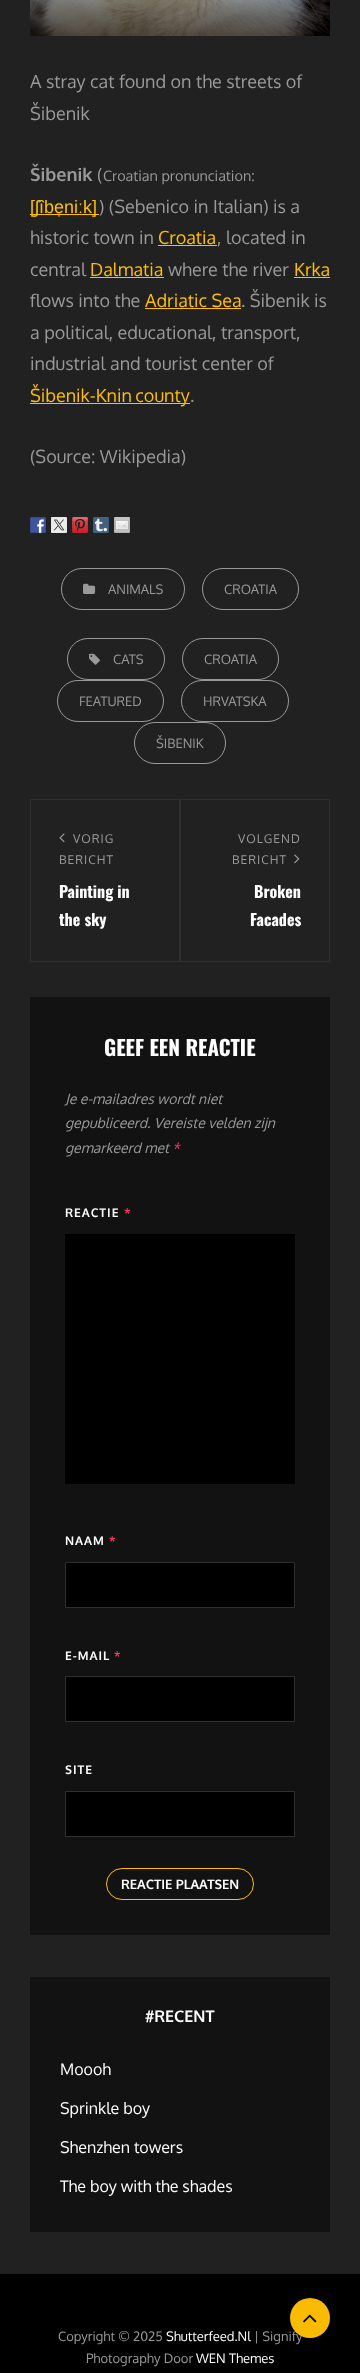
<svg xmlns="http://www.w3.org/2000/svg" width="360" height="2373">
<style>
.a{font:18px Oxygen;fill:#999}
.b{font:bold 18px Oxygen;fill:#999}
.c{font:14.4px Oxygen;fill:#999}
.d{font:18px Liberation Sans;fill:#ffbf00}
.e{font:18px Oxygen;fill:#ffbf00}
.f{font:13px Oxygen;fill:#999}
.g{font:12px Oxygen;letter-spacing:1px;fill:#999}
.h{font:bold 16px Oswald;fill:#fff}
.i{font:bold 21px Oswald;fill:#fff}
.j{font:italic 14px Oxygen;fill:#999}
.k{font:italic 14px Oxygen;fill:#fb3a64}
.l{font:bold 12px Oxygen;letter-spacing:1px;fill:#fff}
.m{font:bold 12px Oxygen;letter-spacing:1px;fill:#fb3a64}
.n{font:bold 13px Oxygen;fill:#fff}
.o{font:bold 16px Oxygen;fill:#fff}
.p{font:16px Oxygen;fill:#fff}
.q{font:13px Oxygen;fill:#fff}
</style>
<rect width="100%" height="100%" fill="#212121"/>
<image href="1.png" x="30" y="0" width="300" height="36"/>
<path fill="#ffbf00" d="M30 214h69v1H30z"/>
<path fill="#ffbf00" d="M158 245h59v1H158z"/>
<path fill="#ffbf00" d="M90 277h74v1H90z"/>
<path fill="#ffbf00" d="M294 277h36v1H294z"/>
<path fill="#ffbf00" d="M145 308h96v1H145z"/>
<path fill="#ffbf00" d="M30 403h160v1H30z"/>
<image href="2.png" x="30" y="517" width="16" height="16"/>
<image href="3.png" x="51" y="517" width="16" height="16"/>
<image href="4.png" x="72" y="517" width="16" height="16"/>
<image href="5.png" x="93" y="517" width="16" height="16"/>
<image href="6.png" x="114" y="517" width="16" height="16"/>
<rect fill="none" stroke="#999" x="61.5" y="568.5" width="123" height="41" rx="20.5"/>
<image href="7.png" x="83" y="583" width="13" height="11"/>
<rect fill="none" stroke="#999" x="202.5" y="568.5" width="96" height="41" rx="20.5"/>
<rect fill="none" stroke="#999" x="67.5" y="638.5" width="97" height="41" rx="20.5"/>
<image href="8.png" x="89" y="653" width="11" height="12"/>
<rect fill="none" stroke="#999" x="182.5" y="638.5" width="96" height="41" rx="20.5"/>
<rect fill="none" stroke="#999" x="57.5" y="680.5" width="106" height="41" rx="20.5"/>
<rect fill="none" stroke="#999" x="181.5" y="680.5" width="107" height="41" rx="20.5"/>
<rect fill="none" stroke="#999" x="134.5" y="722.5" width="91" height="41" rx="20.5"/>
<path fill="none" stroke="#303030" d="M30.5 799.5h149v162H30.5z"/>
<image href="9.png" x="59" y="833" width="6" height="10"/>
<path fill="none" stroke="#303030" d="M180.5 799.5h149v162H180.5z"/>
<image href="10.png" x="294" y="854" width="6" height="10"/>
<path fill="#121212" d="M30 997h300v938H30z"/>
<path fill="#000" d="M65 1234h230v250H65z"/>
<path fill="#000" stroke="#303030" d="M65.5 1562.5h229v45H65.5z"/>
<path fill="#000" stroke="#303030" d="M65.5 1676.5h229v45H65.5z"/>
<path fill="#000" stroke="#303030" d="M65.5 1791.5h229v45H65.5z"/>
<rect fill="none" stroke="#ffbf00" x="106.5" y="1868.5" width="147" height="31" rx="15.5"/>
<path fill="#121212" d="M30 1977h300v255H30z"/>
<path fill="#000" d="M0 2274h360v99H0z"/>
<text class="a" x="30" y="88">A stray cat found on the streets of</text>
<text class="a" x="30" y="120">Šibenik</text>
<text class="b" x="30" y="181">Šibenik</text>
<text class="a" x="97" y="181">(</text>
<text class="c" x="103" y="181">Croatian pronunciation:</text>
<text class="d" x="30" y="213">[ʃîbe̞niːk]</text>
<text class="a" x="99" y="213">) (Sebenico in Italian) is a</text>
<text class="a" x="30" y="244">historic town in</text>
<text class="e" x="158" y="244">Croatia</text>
<text class="a" x="217" y="244">, located in</text>
<text class="a" x="30" y="276">central</text>
<text class="e" x="90" y="276">Dalmatia</text>
<text class="a" x="168" y="276">where the river</text>
<text class="e" x="294" y="276">Krka</text>
<text class="a" x="30" y="307">flows into the</text>
<text class="e" x="145" y="307">Adriatic Sea</text>
<text class="a" x="241" y="307">. Šibenik is</text>
<text class="a" x="30" y="339">a political, educational, transport,</text>
<text class="a" x="30" y="370">industrial and tourist center of</text>
<text class="e" x="30" y="402" word-spacing="-1">Šibenik-Knin county</text>
<text class="a" x="190" y="402">.</text>
<text class="a" x="30" y="463">(Source: Wikipedia)</text>
<text class="f" x="108" y="594">ANIMALS</text>
<text class="f" x="224" y="594">CROATIA</text>
<text class="f" x="113" y="664">CATS</text>
<text class="f" x="204" y="664">CROATIA</text>
<text class="f" x="79" y="706">FEATURED</text>
<text class="f" x="203" y="706">HRVATSKA</text>
<text class="f" x="156" y="748">ŠIBENIK</text>
<text class="g" x="73" y="843">VORIG</text>
<text class="g" x="59" y="864">BERICHT</text>
<text class="h" x="59" y="898">Painting in</text>
<text class="h" x="59" y="926">the sky</text>
<text class="g" x="238" y="843">VOLGEND</text>
<text class="g" x="232" y="864">BERICHT</text>
<text class="h" x="254" y="898">Broken</text>
<text class="h" x="250" y="926">Facades</text>
<text class="i" x="104" y="1056">GEEF EEN REACTIE</text>
<text class="j" x="65" y="1104">Je e-mailadres wordt niet</text>
<text class="j" x="65" y="1128">gepubliceerd. Vereiste velden zijn</text>
<text class="j" x="65" y="1153">gemarkeerd met</text>
<text class="k" x="172" y="1153">*</text>
<text class="l" x="65" y="1217">REACTIE</text>
<text class="m" x="124" y="1217">*</text>
<text class="l" x="65" y="1545">NAAM</text>
<text class="m" x="109" y="1545">*</text>
<text class="l" x="65" y="1660">E-MAIL</text>
<text class="m" x="114" y="1660">*</text>
<text class="l" x="65" y="1774">SITE</text>
<text class="n" x="121" y="1889">REACTIE PLAATSEN</text>
<text class="o" x="145" y="2022">#RECENT</text>
<text class="p" x="60" y="2075">Moooh</text>
<text class="p" x="60" y="2114">Sprinkle boy</text>
<text class="p" x="60" y="2153">Shenzhen towers</text>
<text class="p" x="60" y="2192">The boy with the shades</text>
<text class="f" x="58" y="2341">Copyright © 2025</text>
<text class="q" x="166" y="2341">Shutterfeed.Nl</text>
<text class="f" x="254" y="2341">| Signify</text>
<text class="f" x="86" y="2363">Photography Door</text>
<text class="q" x="196" y="2363">WEN Themes</text>
<circle fill="#ffbf00fa" cx="310" cy="2318" r="20"/>
<image href="11.png" x="303" y="2314" width="14" height="9"/>
</svg>
